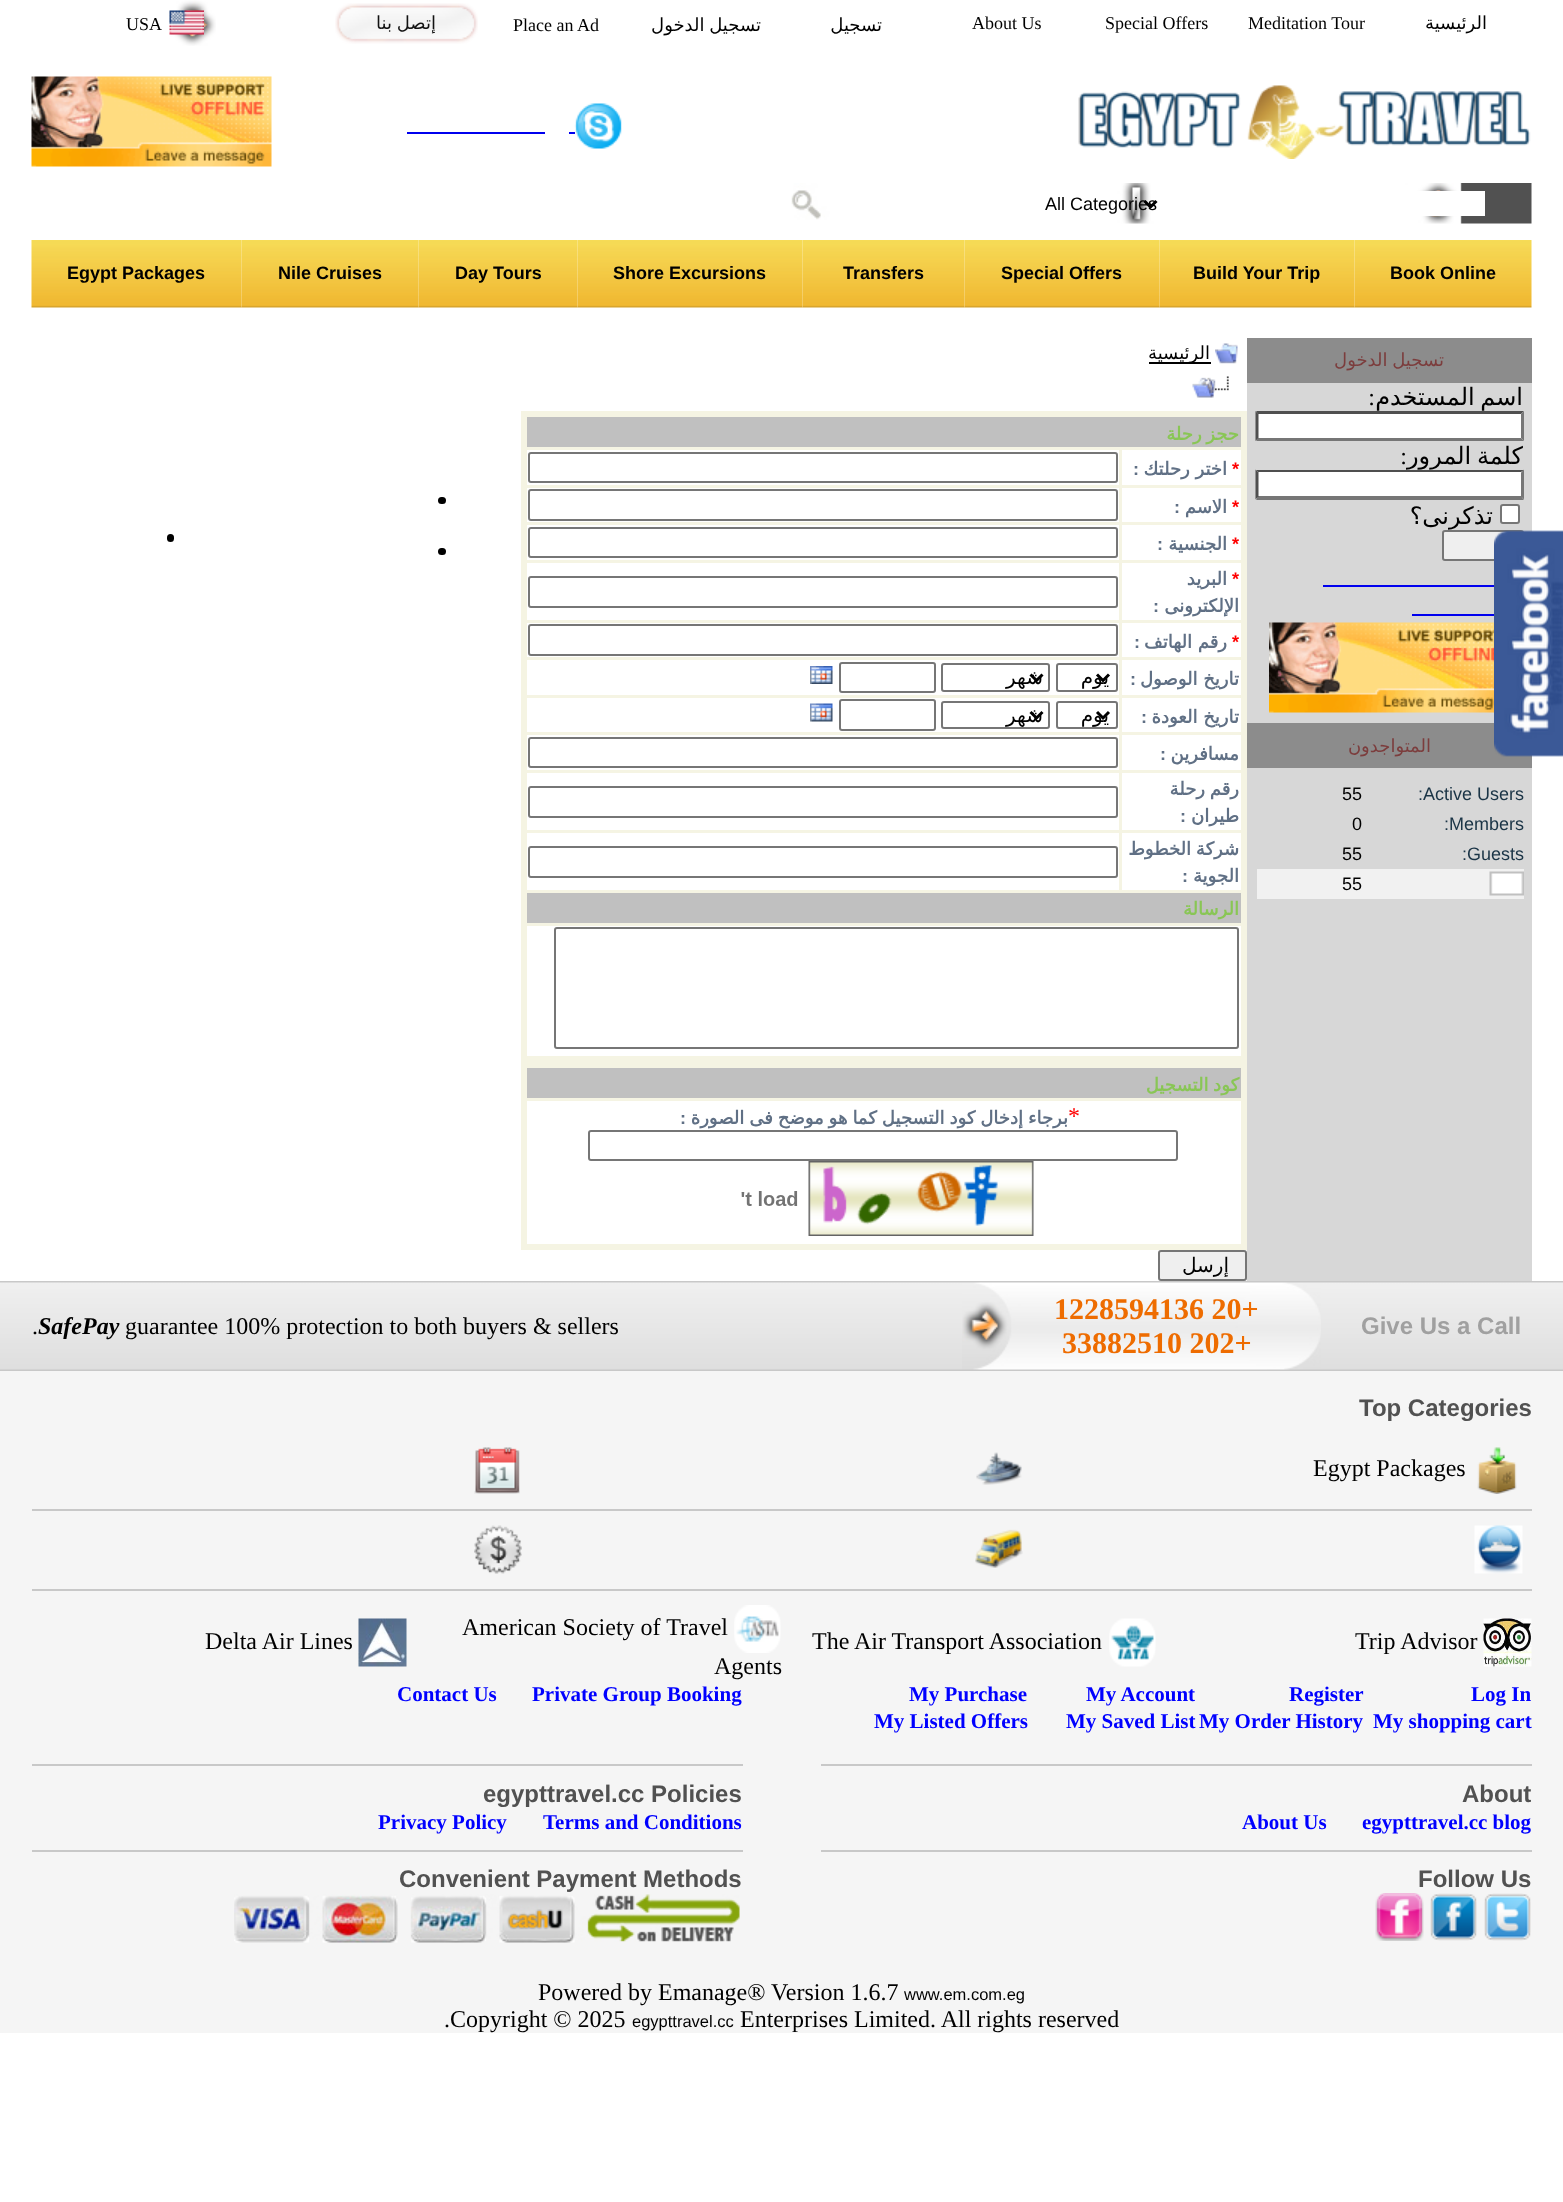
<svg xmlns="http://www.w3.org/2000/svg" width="1563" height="2202">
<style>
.a{font:18px Liberation Serif;fill:#000}
.b{font:18px DejaVu Sans;direction:rtl;fill:#121212}
.c{font:18px DejaVu Sans;direction:rtl;fill:#000}
.d{font:18px Liberation Sans;fill:#000}
.e{font:bold 18px Liberation Sans;fill:#000}
.f{font:bold 18px DejaVu Sans;direction:rtl;fill:#89c655}
.g{font:bold 18px Liberation Sans;direction:rtl;fill:#607085}
.h{font:bold 18px DejaVu Sans;direction:rtl;fill:#607085}
.i{font:bold 18px Liberation Sans;fill:#f00}
.j{font:20px DejaVu Sans;direction:rtl;fill:#000}
.k{font:24px Liberation Serif;fill:#f00}
.l{font:18px DejaVu Sans;direction:rtl;fill:#7c3d3d}
.m{font:24px Liberation Serif;direction:rtl;fill:#000}
.n{font:24px DejaVu Sans;direction:rtl;fill:#000}
.o{font:18px Liberation Sans;fill:#1a3446}
.p{font:24px Liberation Serif;fill:#000}
.q{font:italic bold 24px Liberation Serif;fill:#000}
.r{font:bold 30px Liberation Serif;fill:#ee6c00}
.s{font:bold 24px Liberation Sans;fill:#a0a0a0}
.t{font:bold 24px Liberation Sans;fill:#515151}
.u{font:bold 21px Liberation Serif;fill:#00f}
.v{font:16.5px Liberation Sans;fill:#000}
</style>
<rect width="100%" height="100%" fill="#fff"/>
<image href="1.png" x="169" y="0" width="47" height="46"/>
<image href="2.png" x="169" y="10" width="35" height="25"/>
<image href="3.png" x="335" y="3" width="143" height="41"/>
<image href="4.png" x="31" y="76" width="241" height="91"/>
<path fill="#00e" d="M407 132h132v2H407z"/>
<path fill="#00e" d="M539 132h6v2H539z"/>
<image href="5.png" x="574" y="103" width="48" height="46"/>
<path fill="#00e" d="M569 132h6v2H569z"/>
<image href="6.png" x="1078" y="85" width="453" height="74"/>
<image href="7.png" x="791" y="183" width="741" height="41"/>
<path fill="none" stroke="#000" stroke-width="3" d="M1144.5 201l6 6l6-6"/>
<path fill="#fff" d="M1414 191h71v25H1414z"/>
<image href="8.png" x="31" y="240" width="211" height="68"/>
<image href="9.png" x="241" y="240" width="178" height="68"/>
<image href="10.png" x="418" y="240" width="160" height="68"/>
<image href="11.png" x="577" y="240" width="226" height="68"/>
<image href="12.png" x="802" y="240" width="163" height="68"/>
<image href="13.png" x="964" y="240" width="196" height="68"/>
<image href="13.png" x="1159" y="240" width="196" height="68"/>
<image href="9.png" x="1354" y="240" width="178" height="68"/>
<rect fill="#000" x="167" y="534" width="7" height="8" rx="3.5"/>
<rect fill="#000" x="438" y="497" width="8" height="7" rx="3.5"/>
<rect fill="#000" x="438" y="548" width="8" height="7" rx="3.5"/>
<path fill="#000" d="M1149 362h62v2H1149z"/>
<image href="14.png" x="1215" y="343" width="23" height="21"/>
<image href="15.png" x="1192" y="376" width="37" height="22"/>
<path fill="#f5f4e3" d="M521 411h726v839H521z"/>
<path fill="#c0c0c0" d="M527 417h714v30H527z"/>
<path fill="#fff" d="M527 450h592v35H527z"/>
<rect fill="none" stroke="#767676" stroke-width="2" x="529" y="453" width="588" height="29" rx="2"/>
<path fill="#fff" d="M1122 450h119v35H1122z"/>
<path fill="#fff" d="M527 488h592v34H527z"/>
<rect fill="none" stroke="#767676" stroke-width="2" x="529" y="490" width="588" height="30" rx="2"/>
<path fill="#fff" d="M1122 488h119v34H1122z"/>
<path fill="#fff" d="M527 525h592v35H527z"/>
<rect fill="none" stroke="#767676" stroke-width="2" x="529" y="528" width="588" height="29" rx="2"/>
<path fill="#fff" d="M1122 525h119v35H1122z"/>
<path fill="#fff" d="M527 563h592v57H527z"/>
<rect fill="none" stroke="#767676" stroke-width="2" x="529" y="577" width="588" height="30" rx="2"/>
<path fill="#fff" d="M1122 563h119v57H1122z"/>
<path fill="#fff" d="M527 623h592v34H527z"/>
<rect fill="none" stroke="#767676" stroke-width="2" x="529" y="625" width="588" height="30" rx="2"/>
<path fill="#fff" d="M1122 623h119v34H1122z"/>
<path fill="#fff" d="M527 660h592v35H527z"/>
<image href="16.png" x="810" y="666" width="23" height="18"/>
<rect fill="none" stroke="#767676" stroke-width="2" x="840" y="663" width="95" height="29" rx="2"/>
<rect fill="none" stroke="#767676" stroke-width="2" x="942" y="664" width="107" height="27" rx="2"/>
<path fill="none" stroke="#000" stroke-width="3" d="M1030.5 674.5l6 6l6-6"/>
<rect fill="none" stroke="#767676" stroke-width="2" x="1057" y="664" width="60" height="27" rx="2"/>
<path fill="none" stroke="#000" stroke-width="3" d="M1097 674.5l6 6l6-6"/>
<path fill="#fff" d="M1122 660h119v35H1122z"/>
<path fill="#fff" d="M527 698h592v34H527z"/>
<image href="17.png" x="810" y="703" width="23" height="19"/>
<rect fill="none" stroke="#767676" stroke-width="2" x="840" y="700" width="95" height="30" rx="2"/>
<rect fill="none" stroke="#767676" stroke-width="2" x="942" y="702" width="107" height="26" rx="2"/>
<path fill="none" stroke="#000" stroke-width="3" d="M1030.5 712l6 6l6-6"/>
<rect fill="none" stroke="#767676" stroke-width="2" x="1057" y="702" width="60" height="26" rx="2"/>
<path fill="none" stroke="#000" stroke-width="3" d="M1097 712l6 6l6-6"/>
<path fill="#fff" d="M1122 698h119v34H1122z"/>
<path fill="#fff" d="M527 735h592v35H527z"/>
<rect fill="none" stroke="#767676" stroke-width="2" x="529" y="738" width="588" height="29" rx="2"/>
<path fill="#fff" d="M1122 735h119v35H1122z"/>
<path fill="#fff" d="M527 773h592v57H527z"/>
<rect fill="none" stroke="#767676" stroke-width="2" x="529" y="787" width="588" height="30" rx="2"/>
<path fill="#fff" d="M1122 773h119v57H1122z"/>
<path fill="#fff" d="M527 833h592v57H527z"/>
<rect fill="none" stroke="#767676" stroke-width="2" x="529" y="847" width="588" height="30" rx="2"/>
<path fill="#fff" d="M1122 833h119v57H1122z"/>
<path fill="#c0c0c0" d="M527 893h714v30H527z"/>
<path fill="#fff" d="M527 926h714v130H527z"/>
<rect fill="none" stroke="#767676" stroke-width="2" x="555" y="928" width="683" height="120" rx="2"/>
<path fill="#c0c0c0" d="M527 1068h714v30H527z"/>
<path fill="#fff" d="M527 1101h714v143H527z"/>
<rect fill="none" stroke="#767676" stroke-width="2" x="589" y="1131" width="588" height="29" rx="2"/>
<image href="18.png" x="741" y="1191" width="57" height="15"/>
<image href="19.png" x="808" y="1161" width="226" height="75"/>
<rect fill="#efefef" stroke="#767676" stroke-width="2" x="1159" y="1251" width="87" height="29" rx="2"/>
<path fill="#d7d7d7" d="M1247 383h285v898H1247z"/>
<path fill="#8c8c8c" d="M1247 338h285v45H1247z"/>
<path fill="#fff" d="M1256 411h268v30H1256z"/>
<path fill="#4f4f4f" d="M1256 411h268l-3 3h-263z"/>
<path fill="#767676" d="M1524 411v30l-3-3v-24z"/>
<path fill="#767676" d="M1524 441h-268l2-3h263z"/>
<path fill="#4f4f4f" d="M1255.5 441v-30l3 3v24z"/>
<path fill="#fff" d="M1256 470h268v30H1256z"/>
<path fill="#4f4f4f" d="M1256 470h268l-3 2h-263z"/>
<rect fill="#fff" stroke="#767676" stroke-width="2" x="1501" y="505" width="18" height="18" rx="2"/>
<rect fill="#efefef" stroke="#767676" stroke-width="2" x="1443" y="531" width="80" height="29" rx="2"/>
<path fill="#00e" d="M1323 585h171v2H1323z"/>
<path fill="#00e" d="M1412 614h82v2H1412z"/>
<image href="20.png" x="1269" y="622" width="225" height="91"/>
<path fill="#8c8c8c" d="M1247 723h285v45H1247z"/>
<path fill="#f1f1f1" d="M1257 869h267v30H1257z"/>
<image href="21.png" x="1489" y="871" width="35" height="25"/>
<image href="22.png" x="1494" y="530" width="69" height="227"/>
<image href="23.png" x="0" y="1281" width="1563" height="90"/>
<image href="24.png" x="962" y="1282" width="359" height="88"/>
<path fill="#f5f5f5" d="M0 1371h1563v662H0z"/>
<image href="25.png" x="474" y="1447" width="46" height="47"/>
<image href="26.png" x="976" y="1452" width="46" height="33"/>
<image href="27.png" x="1477" y="1447" width="40" height="47"/>
<path fill="#c8c8c8" d="M32 1509h1500v2H32z"/>
<image href="28.png" x="474" y="1525" width="48" height="49"/>
<image href="29.png" x="975" y="1529" width="48" height="39"/>
<image href="30.png" x="1474" y="1525" width="49" height="49"/>
<path fill="#c8c8c8" d="M32 1589h1500v2H32z"/>
<image href="31.png" x="358" y="1618" width="49" height="49"/>
<image href="32.png" x="734" y="1605" width="47" height="48"/>
<image href="33.png" x="1109" y="1618" width="47" height="49"/>
<image href="34.png" x="1483" y="1618" width="49" height="49"/>
<path fill="#c8c8c8" d="M32 1764h711v2H32z"/>
<path fill="#c8c8c8" d="M821 1764h711v2H821z"/>
<path fill="#c8c8c8" d="M32 1850h711v2H32z"/>
<path fill="#c8c8c8" d="M821 1850h711v2H821z"/>
<image href="35.png" x="234" y="1894" width="506" height="49"/>
<image href="36.png" x="1375" y="1893" width="49" height="48"/>
<image href="37.png" x="1430" y="1893" width="47" height="48"/>
<image href="38.png" x="1484" y="1893" width="47" height="48"/>
<text class="a" x="126" y="30">USA</text>
<text class="b" x="436" y="29" word-spacing="-1">إتصل بنا</text>
<text class="a" x="513" y="31">Place an Ad</text>
<text class="c" x="761" y="31" word-spacing="-1">تسجيل الدخول</text>
<text class="c" x="882" y="31">تسجيل</text>
<text class="a" x="972" y="29">About Us</text>
<text class="a" x="1105" y="29">Special Offers</text>
<text class="a" x="1248" y="29">Meditation Tour</text>
<text class="c" x="1487" y="29">الرئيسية</text>
<text class="d" x="1045" y="210">All Categories</text>
<text class="e" x="67" y="279">Egypt Packages</text>
<text class="e" x="278" y="279">Nile Cruises</text>
<text class="e" x="455" y="279">Day Tours</text>
<text class="e" x="613" y="279">Shore Excursions</text>
<text class="e" x="843" y="279">Transfers</text>
<text class="e" x="1001" y="279">Special Offers</text>
<text class="e" x="1193" y="279">Build Your Trip</text>
<text class="e" x="1390" y="279">Book Online</text>
<text class="c" x="1210" y="359">الرئيسية</text>
<text class="f" x="1239" y="440" word-spacing="-1">حجز رحلة</text>
<text class="g" x="1139" y="475">:</text>
<text class="h" x="1227" y="475">اختر رحلتك</text>
<text class="i" x="1232" y="475">*</text>
<text class="g" x="1180" y="513">:</text>
<text class="h" x="1227" y="513">الاسم</text>
<text class="i" x="1232" y="513">*</text>
<text class="g" x="1163" y="550">:</text>
<text class="h" x="1227" y="550">الجنسية</text>
<text class="i" x="1232" y="550">*</text>
<text class="h" x="1227" y="585">البريد</text>
<text class="i" x="1232" y="585">*</text>
<text class="g" x="1159" y="612">:</text>
<text class="h" x="1239" y="612">الإلكترونى</text>
<text class="g" x="1140" y="648">:</text>
<text class="h" x="1227" y="648">رقم الهاتف</text>
<text class="i" x="1232" y="648">*</text>
<text class="j" x="1043" y="684">شهر</text>
<text class="j" x="1109" y="684">يوم</text>
<text class="g" x="1136" y="685">:</text>
<text class="h" x="1239" y="685">تاريخ الوصول</text>
<text class="j" x="1043" y="722">شهر</text>
<text class="j" x="1109" y="722">يوم</text>
<text class="g" x="1147" y="723">:</text>
<text class="h" x="1239" y="723">تاريخ العودة</text>
<text class="g" x="1166" y="760">:</text>
<text class="h" x="1239" y="760">مسافرين</text>
<text class="h" x="1239" y="795" word-spacing="-1">رقم رحلة</text>
<text class="g" x="1186" y="822">:</text>
<text class="h" x="1239" y="822">طيران</text>
<text class="h" x="1239" y="855" word-spacing="-1">شركة الخطوط</text>
<text class="g" x="1188" y="882">:</text>
<text class="h" x="1239" y="882">الجوية</text>
<text class="f" x="1239" y="915">الرسالة</text>
<text class="f" x="1239" y="1091" word-spacing="-1">كود التسجيل</text>
<text class="g" x="686" y="1124">:</text>
<text class="k" x="1068" y="1124">*</text>
<text class="h" x="1068" y="1124" word-spacing="-0.75">برجاء إدخال كود التسجيل كما هو موضح فى الصورة</text>
<text class="j" x="1229" y="1272">إرسل</text>
<text class="l" x="1444" y="366" word-spacing="-1">تسجيل الدخول</text>
<text class="m" x="1375" y="405">:</text>
<text class="n" x="1523" y="405" word-spacing="-2">اسم المستخدم</text>
<text class="m" x="1407" y="464">:</text>
<text class="n" x="1523" y="464" word-spacing="-2">كلمة المرور</text>
<path fill="#767676" d="M1524 469.5v30l-3-3v-24z"/>
<path fill="#767676" d="M1524 500h-268l2-4h263z"/>
<path fill="#4f4f4f" d="M1255.5 499.5v-30l3 3v24z"/>
<text class="n" x="1493" y="524">تذكرنى؟</text>
<text class="l" x="1431" y="752">المتواجدون</text>
<text class="d" x="1342" y="800">55</text>
<text class="o" x="1418" y="800">:Active Users</text>
<text class="d" x="1352" y="830">0</text>
<text class="o" x="1444" y="830">:Members</text>
<text class="d" x="1342" y="860">55</text>
<text class="o" x="1462" y="860">:Guests</text>
<text class="d" x="1342" y="890">55</text>
<text class="p" x="32" y="1334">.</text>
<text class="q" x="38" y="1334">SafePay</text>
<text class="p" x="125" y="1334">guarantee 100% protection to both buyers &amp; sellers</text>
<text class="r" x="1054" y="1319">1228594136 20+</text>
<text class="r" x="1062" y="1353">33882510 202+</text>
<text class="s" x="1361" y="1334">Give Us a Call</text>
<text class="t" x="1359" y="1416">Top Categories</text>
<text class="p" x="1313" y="1476">Egypt Packages</text>
<text class="p" x="205" y="1649">Delta Air Lines</text>
<text class="p" x="462" y="1635">American Society of Travel</text>
<text class="p" x="714" y="1674">Agents</text>
<text class="p" x="812" y="1649">The Air Transport Association</text>
<text class="p" x="1355" y="1649">Trip Advisor</text>
<text class="u" x="397" y="1701">Contact Us</text>
<text class="u" x="532" y="1701">Private Group Booking</text>
<text class="u" x="909" y="1701">My Purchase</text>
<text class="u" x="1086" y="1701">My Account</text>
<text class="u" x="1289" y="1701">Register</text>
<text class="u" x="1471" y="1701">Log In</text>
<text class="u" x="874" y="1728">My Listed Offers</text>
<text class="u" x="1066" y="1728">My Saved List</text>
<text class="u" x="1199" y="1728">My Order History</text>
<text class="u" x="1373" y="1728">My shopping cart</text>
<text class="t" x="483" y="1802">egypttravel.cc Policies</text>
<text class="t" x="1462" y="1802">About</text>
<text class="u" x="378" y="1829">Privacy Policy</text>
<text class="u" x="543" y="1829">Terms and Conditions</text>
<text class="u" x="1242" y="1829">About Us</text>
<text class="u" x="1362" y="1829">egypttravel.cc blog</text>
<text class="t" x="399" y="1887">Convenient Payment Methods</text>
<text class="t" x="1418" y="1887">Follow Us</text>
<text class="p" x="538" y="2000">Powered by Emanage® Version 1.6.7</text>
<text class="v" x="904" y="2000">www.em.com.eg</text>
<text class="p" x="444" y="2027">.</text>
<text class="p" x="450" y="2027">Copyright © 2025</text>
<text class="v" x="632" y="2027">egypttravel.cc</text>
<text class="p" x="740" y="2027">Enterprises Limited. All rights reserved</text>
</svg>
